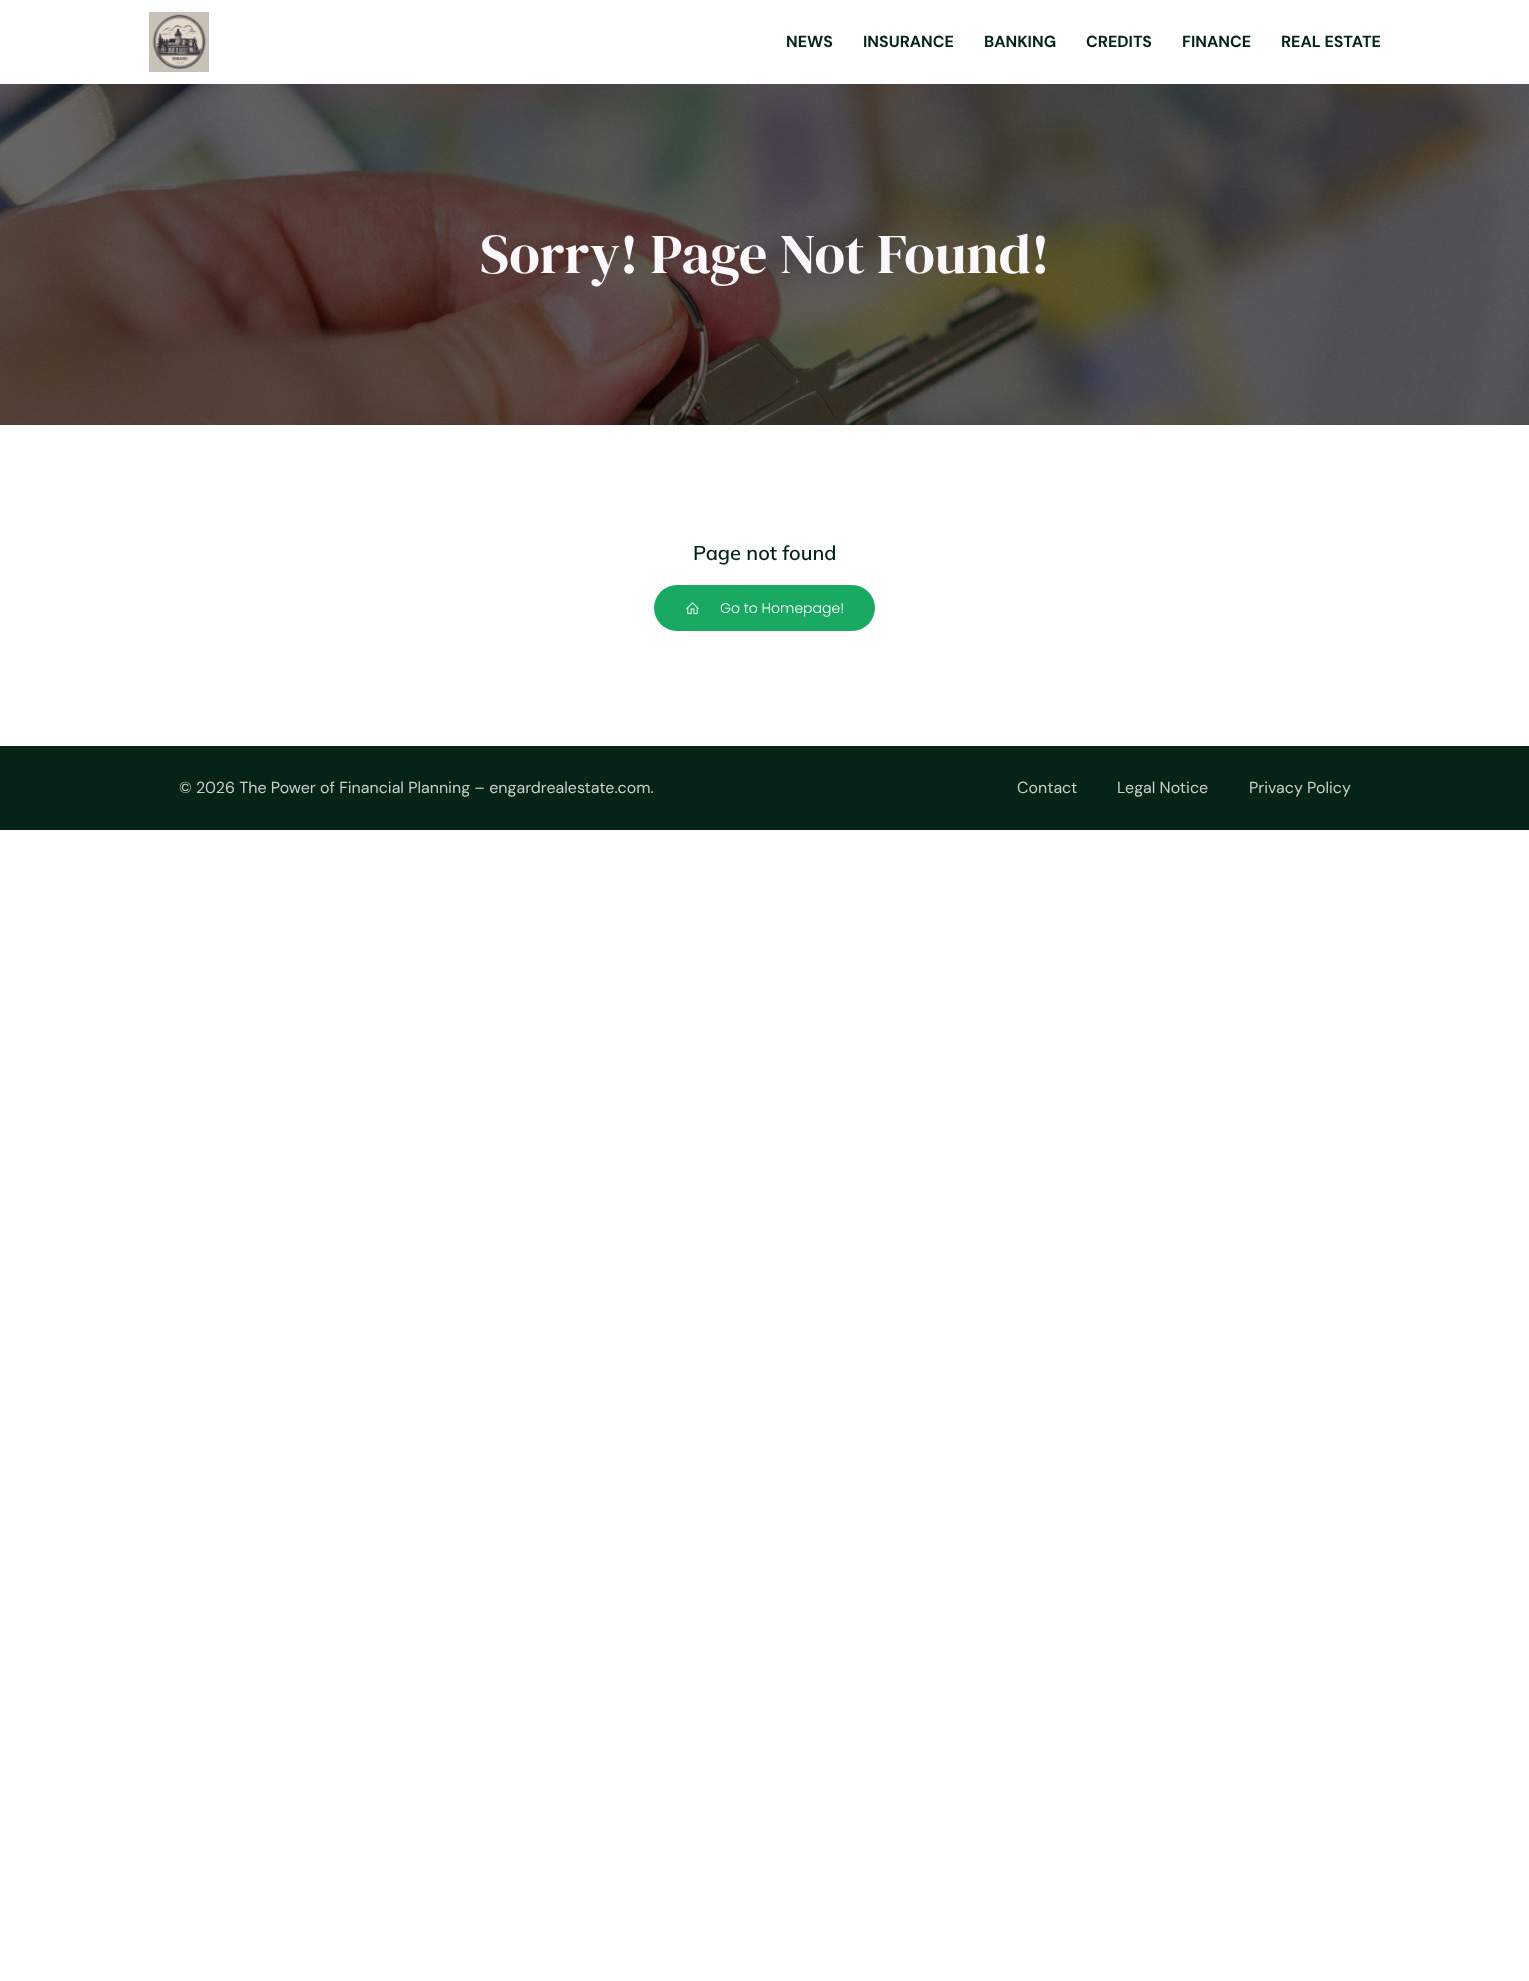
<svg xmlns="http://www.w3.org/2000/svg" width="1529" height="1981">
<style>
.a{font:bold 16px DM Sans;fill:#052415}
.b{font:56px DM Serif Display;fill:#fbf8fb}
.c{font:600 20px Mulish;fill:#052415}
.d{font:300 14px Poppins;fill:#fff}
.e{font:16px DM Sans;fill:#cacecd}
</style>
<rect width="100%" height="100%" fill="#fff"/>
<image href="1.png" x="149" y="12" width="60" height="60"/>
<image href="2.png" x="0" y="84" width="1529" height="341"/>
<rect fill="#19a963" x="654" y="585" width="221" height="46" rx="23"/>
<image href="3.png" x="686" y="602" width="13" height="13"/>
<path fill="#052415" d="M0 746h1529v84H0z"/>
<text class="a" x="786" y="47">NEWS</text>
<text class="a" x="863" y="47">INSURANCE</text>
<text class="a" x="984" y="47">BANKING</text>
<text class="a" x="1086" y="47">CREDITS</text>
<text class="a" x="1182" y="47">FINANCE</text>
<text class="a" x="1281" y="47">REAL ESTATE</text>
<text class="b" x="480" y="273">Sorry! Page Not Found!</text>
<text class="c" x="693" y="560">Page not found</text>
<text class="d" x="720" y="613">Go to Homepage!</text>
<text class="e" x="179" y="793">© 2026 The Power of Financial Planning – engardrealestate.com.</text>
<text class="e" x="1017" y="793">Contact</text>
<text class="e" x="1117" y="793">Legal Notice</text>
<text class="e" x="1249" y="793">Privacy Policy</text>
</svg>
